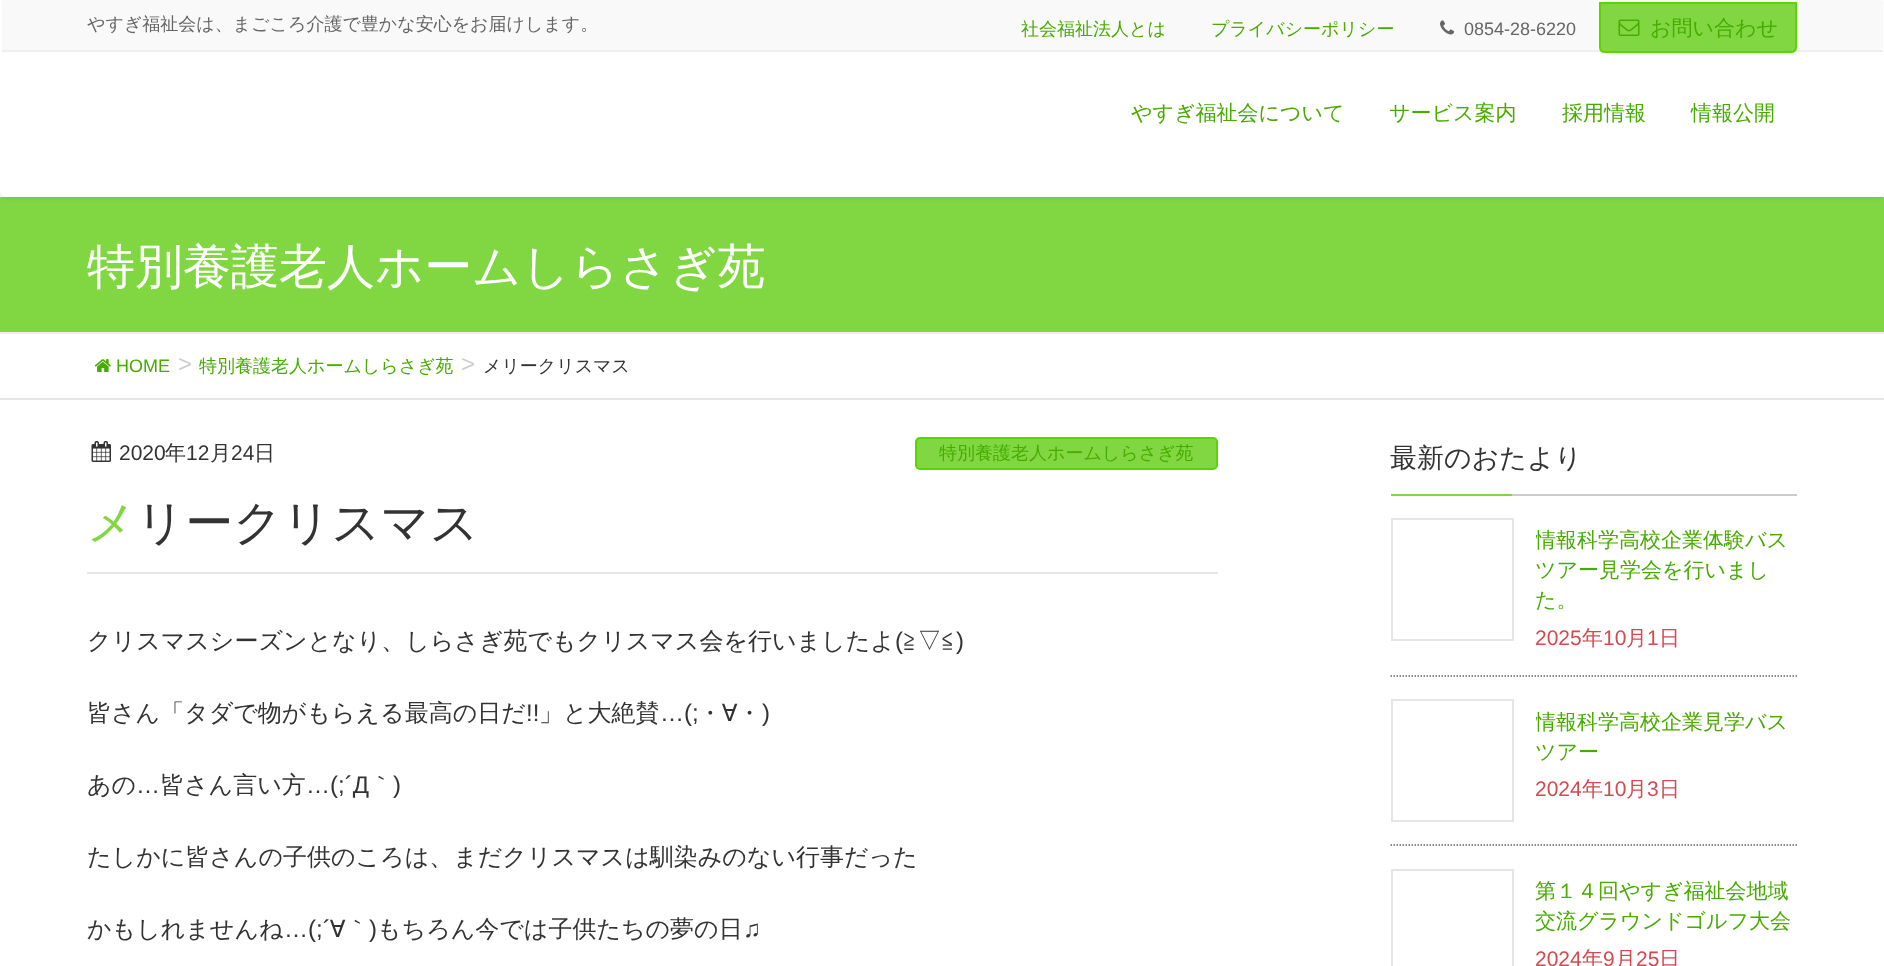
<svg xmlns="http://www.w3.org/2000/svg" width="1884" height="966">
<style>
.a{font:500 18px WenQuanYi Zen Hei;fill:#666}
.b{font:500 18px WenQuanYi Zen Hei;fill:#47ab00}
.c{font:18px Liberation Sans;fill:#666}
.d{font:500 21px WenQuanYi Zen Hei;fill:#47ab00}
.e{font:500 48px WenQuanYi Zen Hei;fill:#fff}
.f{font:18px Liberation Sans;fill:#47ab00}
.g{font:24px Liberation Sans;fill:#ccc}
.h{font:500 18px WenQuanYi Zen Hei;fill:#333}
.i{font:21px Liberation Sans;fill:#333}
.j{font:500 21px WenQuanYi Zen Hei;fill:#333}
.k{font:500 48px Noto Sans;fill:#81d742}
.l{font:500 48px WenQuanYi Zen Hei;fill:#333}
.m{font:500 24px WenQuanYi Zen Hei;fill:#333}
.n{font:24px Liberation Sans;fill:#333}
.o{font:500 27px WenQuanYi Zen Hei;fill:#333}
.p{font:21px Liberation Sans;fill:#d44950}
.q{font:500 21px WenQuanYi Zen Hei;fill:#d44950}
</style>
<defs>
<clipPath id="clip1"><path d="M1536 518h261v135H1536z"/></clipPath>
<clipPath id="clip2"><path d="M1536 699h261v105H1536z"/></clipPath>
</defs>
<rect width="100%" height="100%" fill="#fff"/>
<path fill="#81d742" d="M0 197h1884v135H0z"/>
<rect fill="#0000001a" filter="blur(2px)" y="2" width="1884" height="196" rx="6"/>
<rect fill="#fff" width="1884" height="197" rx="6"/>
<path fill="#f9f9f9" d="M2 0h1881v50H2z"/>
<path fill="#efefef" d="M2 50h1881v2H2z"/>
<image href="1.png" x="1440" y="20" width="15" height="15"/>
<path fill="#81d742" stroke="#59d600" stroke-width="2" d="M1600 3h196v44c0 3-2 5-5 5h-186c-3 0-5-2-5-5z"/>
<image href="2.png" x="1618" y="19" width="22" height="17"/>
<path fill="#eee" d="M0 332h1884v2H0z"/>
<path fill="#e5e5e5" d="M0 398h1884v2H0z"/>
<image href="3.png" x="94" y="359" width="17" height="13"/>
<path fill="#e5e5e5" d="M87 572h1131v2H87z"/>
<image href="4.png" x="91" y="441" width="20" height="21"/>
<rect fill="#81d742" stroke="#59d600" stroke-width="2" x="916" y="438" width="301" height="31" rx="4"/>
<path fill="#ccc" d="M1512 494h285v2H1512z"/>
<path fill="#81d742" d="M1391 494h121v2H1391z"/>
<path fill="none" stroke="#666" stroke-width="1.5" stroke-dasharray="1.5 1.5" d="M1390.5 676h406.5"/>
<path fill="none" stroke="#e5e5e5" stroke-width="2" d="M1392 519h121v121H1392z"/>
<path fill="none" stroke="#666" stroke-width="1.5" stroke-dasharray="1.5 1.5" d="M1390.5 845h406.5"/>
<path fill="none" stroke="#e5e5e5" stroke-width="2" d="M1392 700h121v121H1392z"/>
<path fill="none" stroke="#e5e5e5" stroke-width="2" d="M1392 870h121v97H1392z"/>
<text class="a" x="87" y="30">やすぎ福祉会は、まごころ介護で豊かな安心をお届けします。</text>
<text class="b" x="1021" y="35">社会福祉法人とは</text>
<text class="b" x="1211" y="35">プライバシーポリシー</text>
<text class="c" x="1464" y="35">0854-28-6220</text>
<text class="d" x="1650" y="35">お問い合わせ</text>
<text class="d" x="1131" y="120">やすぎ福祉会について</text>
<text class="d" x="1389" y="120">サービス案内</text>
<text class="d" x="1562" y="120">採用情報</text>
<text class="d" x="1691" y="120">情報公開</text>
<text class="e" x="87" y="283">特別養護老人ホームしらさぎ苑</text>
<text class="f" x="116" y="372">HOME</text>
<text class="g" x="178" y="372">&gt;</text>
<text class="b" x="199" y="372">特別養護老人ホームしらさぎ苑</text>
<text class="g" x="461" y="372">&gt;</text>
<text class="h" x="483" y="372">メリークリスマス</text>
<text class="i" x="119" y="460">2020</text>
<text class="j" x="165" y="460">年</text>
<text class="i" x="186" y="460">12</text>
<text class="j" x="210" y="460">月</text>
<text class="i" x="231" y="460">24</text>
<text class="j" x="254" y="460">日</text>
<text class="b" x="939" y="459">特別養護老人ホームしらさぎ苑</text>
<text class="k" x="87" y="539">メ</text>
<text class="l" x="136" y="539">リークリスマス</text>
<text class="m" x="87" y="649">クリスマスシーズンとなり、しらさぎ苑でもクリスマス会を行いましたよ</text>
<text class="n" x="895" y="649">(</text>
<text class="m" x="903" y="649">≧▽≦</text>
<text class="n" x="956" y="649">)</text>
<text class="m" x="87" y="721">皆さん「タダで物がもらえる最高の日だ</text>
<text class="n" x="526" y="721">!!</text>
<text class="m" x="539" y="721">」と大絶賛</text>
<text class="n" x="660" y="721">…(;</text>
<text class="m" x="698" y="721">・∀・</text>
<text class="n" x="762" y="721">)</text>
<text class="m" x="87" y="793">あの</text>
<text class="n" x="136" y="793">…</text>
<text class="m" x="160" y="793">皆さん言い方</text>
<text class="n" x="306" y="793">…(;´Д</text>
<text class="m" x="369" y="793">｀</text>
<text class="n" x="393" y="793">)</text>
<text class="m" x="87" y="865">たしかに皆さんの子供のころは、まだクリスマスは馴染みのない行事だった</text>
<text class="m" x="87" y="937">かもしれませんね</text>
<text class="n" x="284" y="937">…(;´</text>
<text class="m" x="330" y="937">∀｀</text>
<text class="n" x="369" y="937">)</text>
<text class="m" x="377" y="937">もちろん今では子供たちの夢の日</text>
<text class="n" x="743" y="937">♫</text>
<text class="o" x="1390" y="467">最新のおたより</text>
<g clip-path="url(#clip1)">
<text class="d" x="1535" y="547">情報科学高校企業体験バス</text>
</g>
<text class="d" x="1535" y="577">ツアー見学会を行いまし</text>
<text class="d" x="1535" y="607">た。</text>
<text class="p" x="1535" y="645">2025</text>
<text class="q" x="1582" y="645">年</text>
<text class="p" x="1603" y="645">10</text>
<text class="q" x="1626" y="645">月</text>
<text class="p" x="1647" y="645">1</text>
<text class="q" x="1659" y="645">日</text>
<g clip-path="url(#clip2)">
<text class="d" x="1535" y="729">情報科学高校企業見学バス</text>
</g>
<text class="d" x="1535" y="759">ツアー</text>
<text class="p" x="1535" y="796">2024</text>
<text class="q" x="1582" y="796">年</text>
<text class="p" x="1603" y="796">10</text>
<text class="q" x="1626" y="796">月</text>
<text class="p" x="1647" y="796">3</text>
<text class="q" x="1659" y="796">日</text>
<text class="d" x="1535" y="898">第１４回やすぎ福祉会地域</text>
<text class="d" x="1535" y="928">交流グラウンドゴルフ大会</text>
<text class="p" x="1535" y="966">2024</text>
<text class="q" x="1582" y="966">年</text>
<text class="p" x="1603" y="966">9</text>
<text class="q" x="1615" y="966">月</text>
<text class="p" x="1636" y="966">25</text>
<text class="q" x="1659" y="966">日</text>
</svg>
